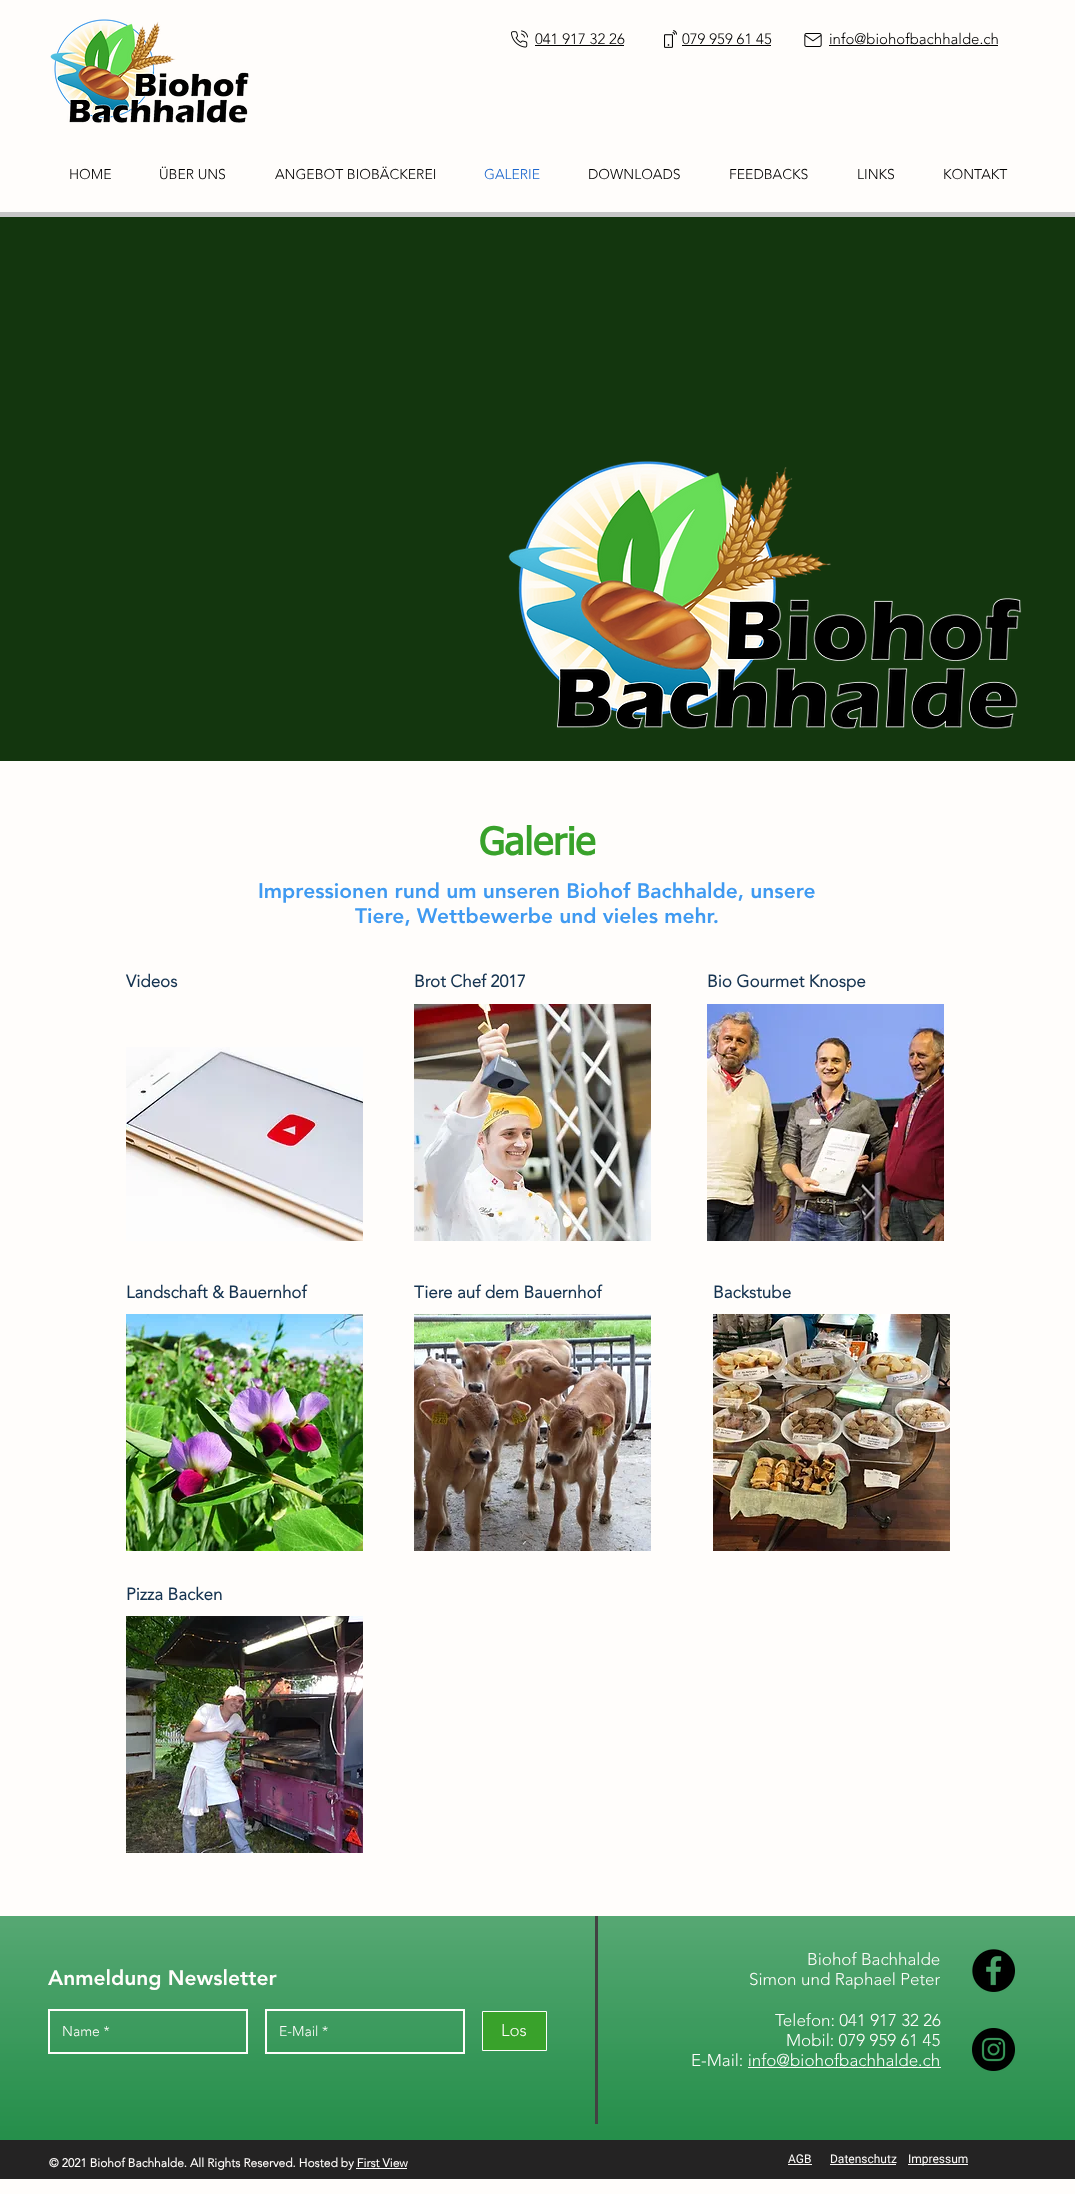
<svg xmlns="http://www.w3.org/2000/svg" width="1075" height="2194">
<style>
.a{font:300 15px 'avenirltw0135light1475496';fill:#000}
.b{font:300 14px 'avenirltw0135light1475496';fill:#000}
.c{font:300 14px 'avenirltw0135light1475496';fill:#1d67cd}
.d{font:bold 38px tahoma;fill:#39a22b}
.e{font:900 21px 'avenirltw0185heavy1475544';fill:#3f9af1}
.f{font:bold 17px 'avenirltw0135light1475496';fill:#153350}
.g{font:900 21px 'avenirltw0185heavy1475544';fill:#fffdfb}
.h{font:300 14px 'avenirltw0135light1475496';fill:#fffdfb}
.i{font:300 17px 'avenirltw0135light1475496';fill:#fffdfb}
.j{font:bold 12px 'avenirltw0135light1475496';fill:#fffdfb}
.k{font:12px Roboto;fill:#fffdfb}
</style>
<rect width="100%" height="100%" fill="#fffdfb"/>
<image href="1.png" x="50" y="19" width="199" height="104"/>
<image href="2.png" x="511" y="30" width="17" height="18"/>
<path fill="#000" d="M535 45h89v1H535z"/>
<image href="3.png" x="664" y="30" width="13" height="18"/>
<path fill="#000" d="M682 45h89v1H682z"/>
<image href="4.png" x="804" y="33" width="18" height="14"/>
<path fill="#000" d="M829 45h169v1H829z"/>
<path fill="#c7c7c7" d="M0 212h1075v5H0z"/>
<path fill="#13360e" d="M0 217h1075v544H0z"/>
<image href="5.png" x="508" y="461" width="514" height="269"/>
<image href="6.png" x="126" y="1047" width="237" height="194"/>
<image href="7.png" x="414" y="1004" width="237" height="237"/>
<image href="8.png" x="707" y="1004" width="237" height="237"/>
<image href="9.png" x="126" y="1314" width="237" height="237"/>
<image href="10.png" x="414" y="1314" width="237" height="237"/>
<image href="11.png" x="713" y="1314" width="237" height="237"/>
<image href="12.png" x="126" y="1616" width="237" height="237"/>
<path fill="#1c8a43" d="M0 1916h1075v224H0z"/>
<image href="13.png" x="0" y="1916" width="1075" height="224"/>
<path fill="none" stroke="#fffdfb" stroke-width="2" d="M49 2010h198v43H49z"/>
<path fill="none" stroke="#fffdfb" stroke-width="2" d="M266 2010h198v43H266z"/>
<path fill="#39a22b" stroke="#fffdfb" d="M482.5 2011.5h64v39H482.5z"/>
<path fill="#424242" d="M595 1916h3v208H595z"/>
<path fill="#fffdfb" d="M748 2067h193v1H748z"/>
<image href="14.png" x="972" y="1949" width="43" height="43"/>
<image href="15.png" x="972" y="2028" width="43" height="43"/>
<path fill="#242323" d="M0 2140h1075v39H0z"/>
<path fill="#fffdfb" d="M788 2164h24v1H788z"/>
<path fill="#fffdfb" d="M830 2164h66v1H830z"/>
<path fill="#fffdfb" d="M908 2164h60v1H908z"/>
<text class="a" x="535" y="44">041 917 32 26</text>
<text class="a" x="682" y="44">079 959 61 45</text>
<text class="a" x="829" y="44">info@biohofbachhalde.ch</text>
<text class="b" x="69" y="179">HOME</text>
<text class="b" x="159" y="179">ÜBER UNS</text>
<text class="b" x="275" y="179">ANGEBOT BIOBÄCKEREI</text>
<text class="c" x="484" y="179">GALERIE</text>
<text class="b" x="588" y="179">DOWNLOADS</text>
<text class="b" x="729" y="179">FEEDBACKS</text>
<text class="b" x="857" y="179">LINKS</text>
<text class="b" x="943" y="179">KONTAKT</text>
<text class="d" x="479" y="855">Galerie</text>
<text class="e" x="258" y="898">Impressionen rund um unseren Biohof Bachhalde, unsere</text>
<text class="e" x="355" y="923">Tiere, Wettbewerbe und vieles mehr.</text>
<text class="f" x="126" y="987">Videos</text>
<text class="f" x="414" y="987">Brot Chef 2017</text>
<text class="f" x="707" y="987">Bio Gourmet Knospe</text>
<text class="f" x="126" y="1298">Landschaft &amp; Bauernhof</text>
<text class="f" x="414" y="1298">Tiere auf dem Bauernhof</text>
<text class="f" x="713" y="1298">Backstube</text>
<text class="f" x="126" y="1600">Pizza Backen</text>
<text class="g" x="48" y="1985">Anmeldung Newsletter</text>
<text class="h" x="62" y="2036">Name *</text>
<text class="h" x="279" y="2036">E-Mail *</text>
<text class="i" x="501" y="2036">Los</text>
<text class="i" x="807" y="1965">Biohof Bachhalde</text>
<text class="i" x="749" y="1985">Simon und Raphael Peter</text>
<text class="i" x="775" y="2026">Telefon: 041 917 32 26</text>
<text class="i" x="786" y="2046">Mobil: 079 959 61 45</text>
<text class="i" x="691" y="2066">E-Mail: info@biohofbachhalde.ch</text>
<text class="j" x="49" y="2167">© 2021 Biohof Bachhalde. All Rights Reserved. Hosted by First View</text>
<path fill="#fff" d="M356 2168h51v1H356z"/>
<text class="k" x="788" y="2163">AGB</text>
<text class="k" x="830" y="2163">Datenschutz</text>
<text class="k" x="908" y="2163">Impressum</text>
</svg>
